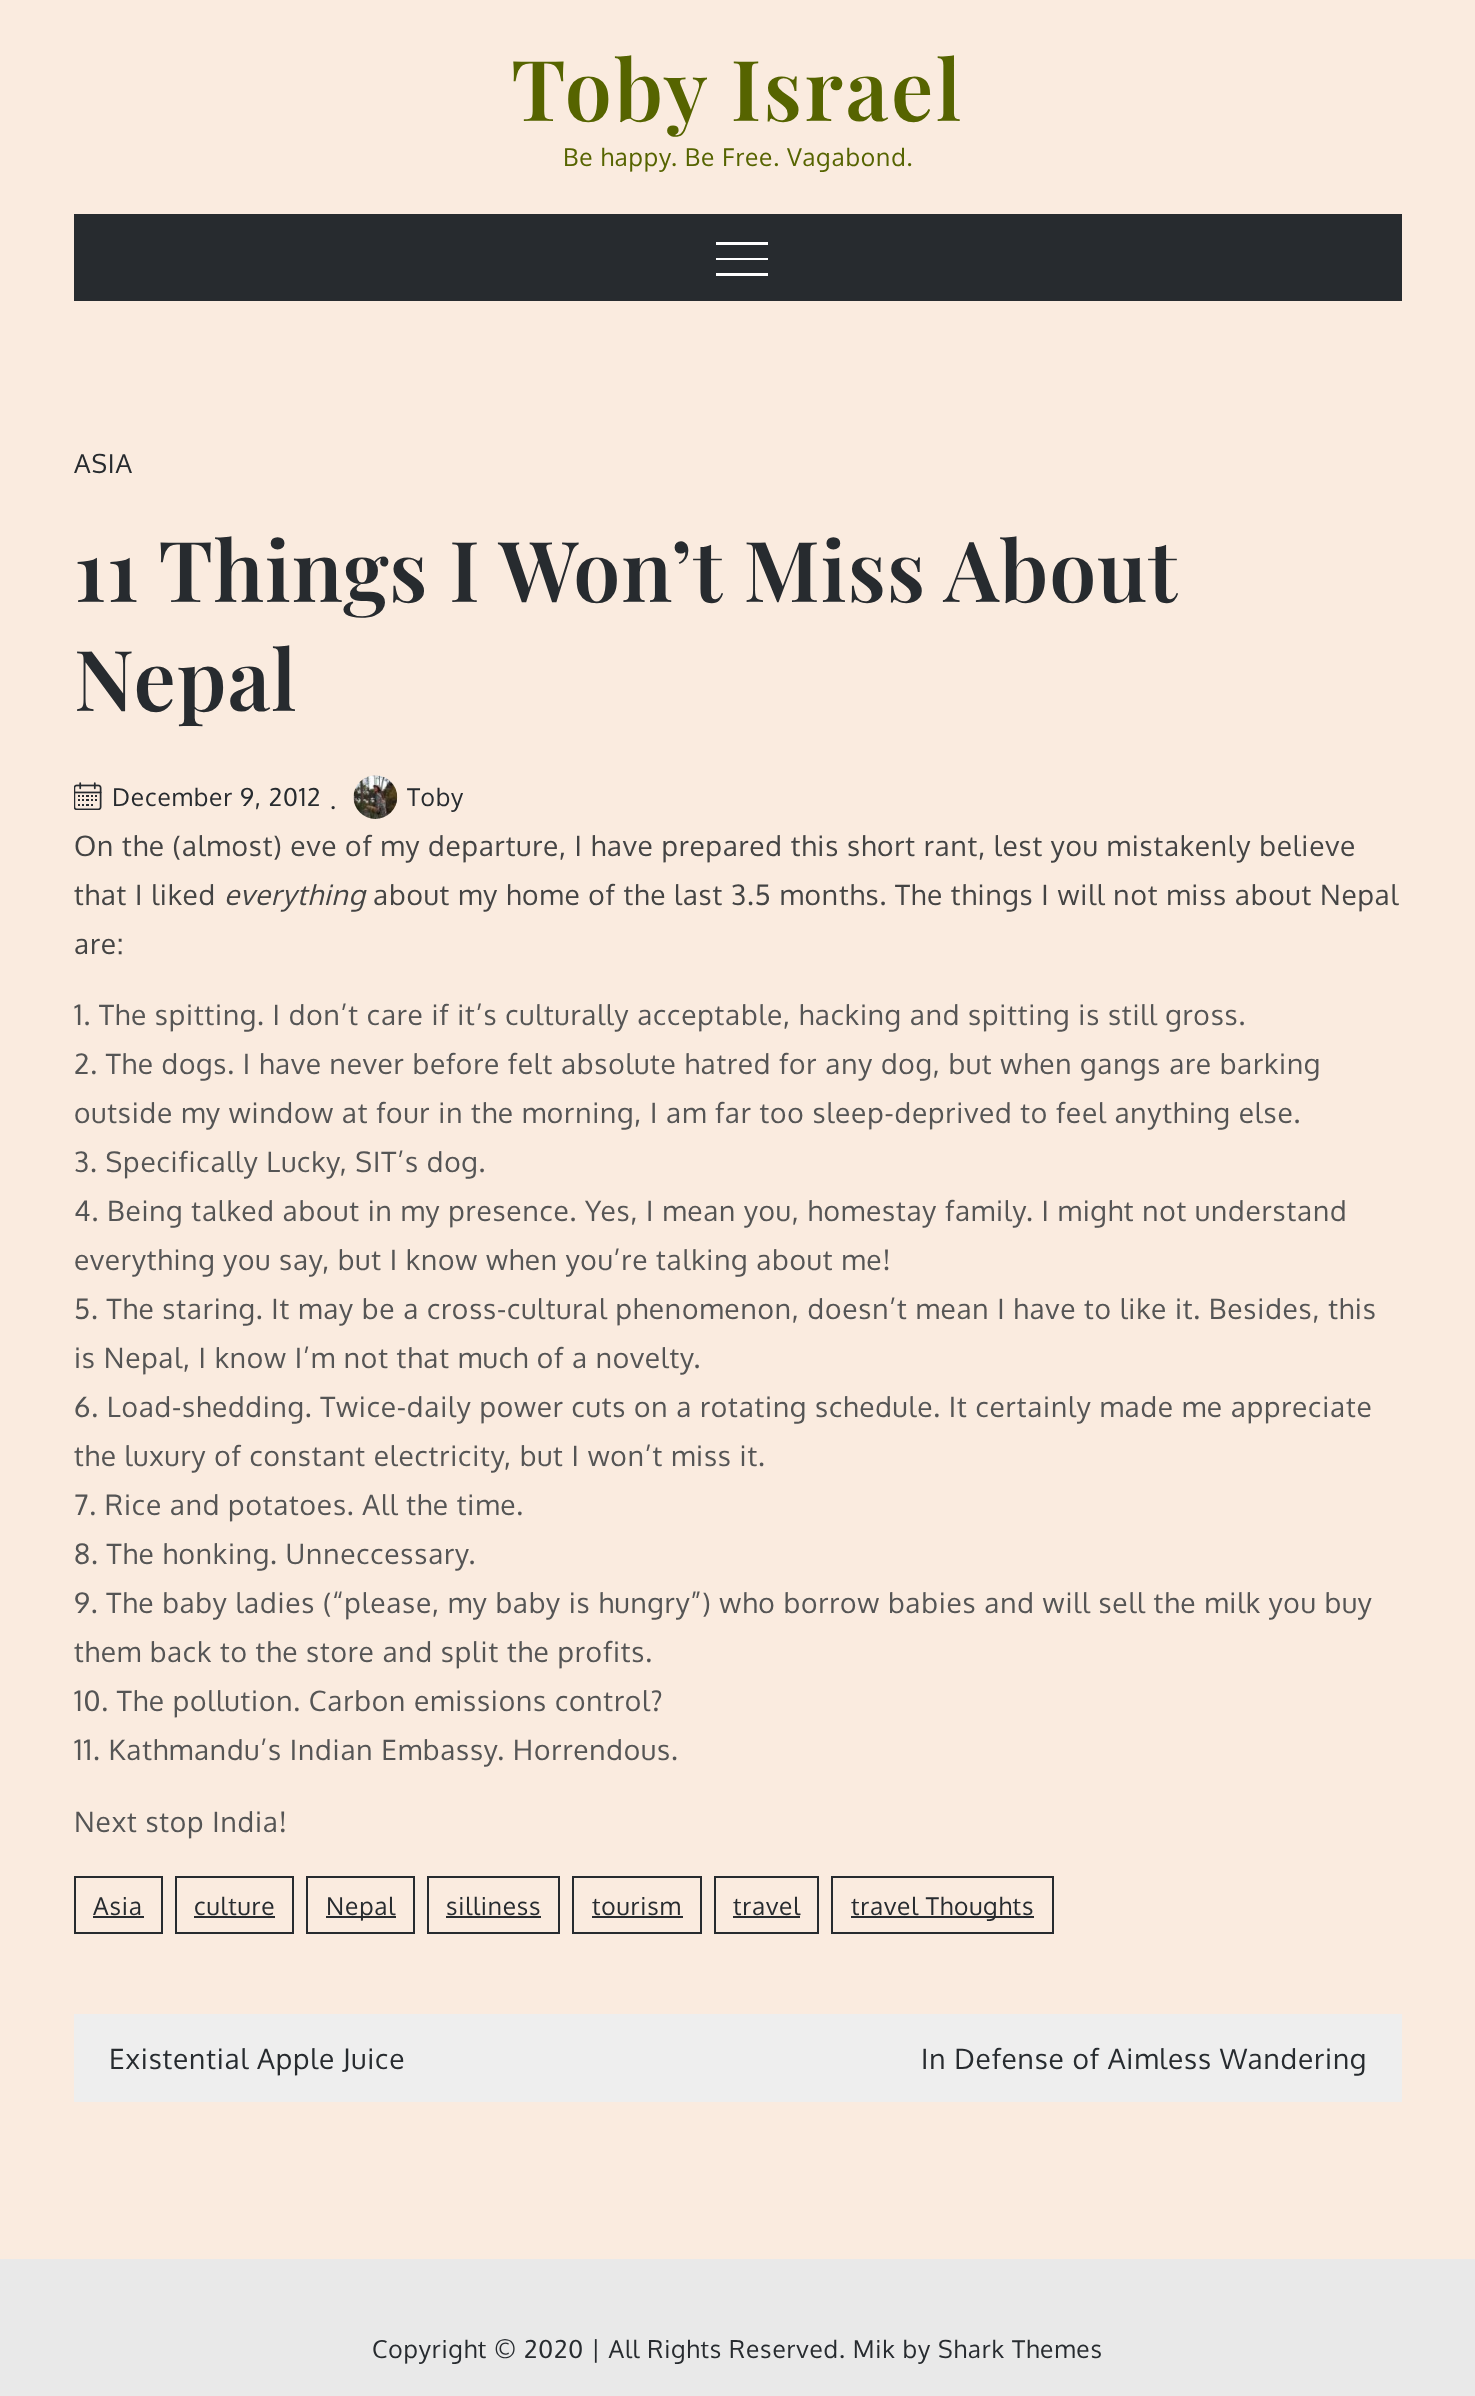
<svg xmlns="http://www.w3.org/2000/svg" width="1475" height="2396">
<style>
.a{font:600 84px Playfair Display;letter-spacing:2.6px;fill:#566400}
.b{font:24.5px Oxygen;letter-spacing:0.88px;fill:#566400}
.c{font:26px Oxygen;letter-spacing:0.88px;fill:#272b2f}
.d{font:600 84px Playfair Display;letter-spacing:0.88px;fill:#272b2f}
.e{font:24.5px Oxygen;letter-spacing:0.88px;fill:#272b2f}
.f{font:28px Oxygen;letter-spacing:0.88px;fill:#444}
.g{font:italic 28px Oxygen;letter-spacing:0.88px;fill:#444}
.h{font:28px Oxygen;letter-spacing:0.88px;fill:#555}
.i{font:28px Oxygen;letter-spacing:0.88px;fill:#272b2f}
</style>
<rect width="100%" height="100%" fill="#faebdf"/>
<path fill="#272b2f" d="M74 214h1328v87H74z"/>
<path fill="#fff" d="M716 242h52v3H716z"/>
<path fill="#fff" d="M716 258h52v2H716z"/>
<path fill="#fff" d="M716 273h52v3H716z"/>
<image href="1.png" x="74" y="782" width="28" height="28"/>
<image href="2.png" x="353" y="775" width="45" height="44"/>
<path fill="none" stroke="#272b2f" stroke-width="2" d="M75 1877h87v56H75z"/>
<path fill="#272b2f" d="M93 1916h51v2H93z"/>
<path fill="none" stroke="#272b2f" stroke-width="2" d="M176 1877h117v56H176z"/>
<path fill="#272b2f" d="M194 1916h81v2H194z"/>
<path fill="none" stroke="#272b2f" stroke-width="2" d="M307 1877h107v56H307z"/>
<path fill="#272b2f" d="M326 1916h70v2H326z"/>
<path fill="none" stroke="#272b2f" stroke-width="2" d="M428 1877h131v56H428z"/>
<path fill="#272b2f" d="M446 1916h95v2H446z"/>
<path fill="none" stroke="#272b2f" stroke-width="2" d="M573 1877h128v56H573z"/>
<path fill="#272b2f" d="M592 1916h91v2H592z"/>
<path fill="none" stroke="#272b2f" stroke-width="2" d="M715 1877h103v56H715z"/>
<path fill="#272b2f" d="M733 1916h67v2H733z"/>
<path fill="none" stroke="#272b2f" stroke-width="2" d="M832 1877h221v56H832z"/>
<path fill="#272b2f" d="M851 1916h183v2H851z"/>
<path fill="#eee" d="M74 2014h1328v88H74z"/>
<path fill="#e9e9e9" d="M0 2259h1475v137H0z"/>
<text class="a" x="511" y="121">Toby Israel</text>
<text class="b" x="563" y="166">Be happy. Be Free. Vagabond.</text>
<text class="c" x="74" y="473">ASIA</text>
<text class="d" x="74" y="602">11 Things I Won’t Miss About</text>
<text class="d" x="74" y="711">Nepal</text>
<text class="e" x="112" y="806">December 9, 2012</text>
<text class="e" x="330" y="809">.</text>
<text class="e" x="407" y="806">Toby</text>
<text class="f" x="74" y="856">On the (almost) eve of my departure, I have prepared this short rant, lest you mistakenly believe</text>
<text class="f" x="74" y="905">that I liked</text>
<text class="g" x="224" y="905">everything</text>
<text class="f" x="373" y="905">about my home of the last 3.5 months. The things I will not miss about Nepal</text>
<text class="f" x="74" y="954">are:</text>
<text class="h" x="74" y="1025">1. The spitting. I don’t care if it’s culturally acceptable, hacking and spitting is still gross.</text>
<text class="h" x="74" y="1074">2. The dogs. I have never before felt absolute hatred for any dog, but when gangs are barking</text>
<text class="h" x="74" y="1123">outside my window at four in the morning, I am far too sleep-deprived to feel anything else.</text>
<text class="h" x="74" y="1172">3. Specifically Lucky, SIT’s dog.</text>
<text class="h" x="74" y="1221">4. Being talked about in my presence. Yes, I mean you, homestay family. I might not understand</text>
<text class="h" x="74" y="1270">everything you say, but I know when you’re talking about me!</text>
<text class="h" x="74" y="1319">5. The staring. It may be a cross-cultural phenomenon, doesn’t mean I have to like it. Besides, this</text>
<text class="h" x="74" y="1368">is Nepal, I know I’m not that much of a novelty.</text>
<text class="h" x="74" y="1417">6. Load-shedding. Twice-daily power cuts on a rotating schedule. It certainly made me appreciate</text>
<text class="h" x="74" y="1466">the luxury of constant electricity, but I won’t miss it.</text>
<text class="h" x="74" y="1515">7. Rice and potatoes. All the time.</text>
<text class="h" x="74" y="1564">8. The honking. Unneccessary.</text>
<text class="h" x="74" y="1613">9. The baby ladies (“please, my baby is hungry”) who borrow babies and will sell the milk you buy</text>
<text class="h" x="74" y="1662">them back to the store and split the profits.</text>
<text class="h" x="74" y="1711">10. The pollution. Carbon emissions control?</text>
<text class="h" x="74" y="1760">11. Kathmandu’s Indian Embassy. Horrendous.</text>
<text class="h" x="74" y="1832">Next stop India!</text>
<text class="e" x="93" y="1915">Asia</text>
<text class="e" x="194" y="1915">culture</text>
<text class="e" x="326" y="1915">Nepal</text>
<text class="e" x="446" y="1915">silliness</text>
<text class="e" x="592" y="1915">tourism</text>
<text class="e" x="733" y="1915">travel</text>
<text class="e" x="851" y="1915">travel Thoughts</text>
<text class="i" x="109" y="2069">Existential Apple Juice</text>
<text class="i" x="921" y="2069">In Defense of Aimless Wandering</text>
<text class="e" x="372" y="2358">Copyright © 2020 | All Rights Reserved. Mik by Shark Themes</text>
</svg>
